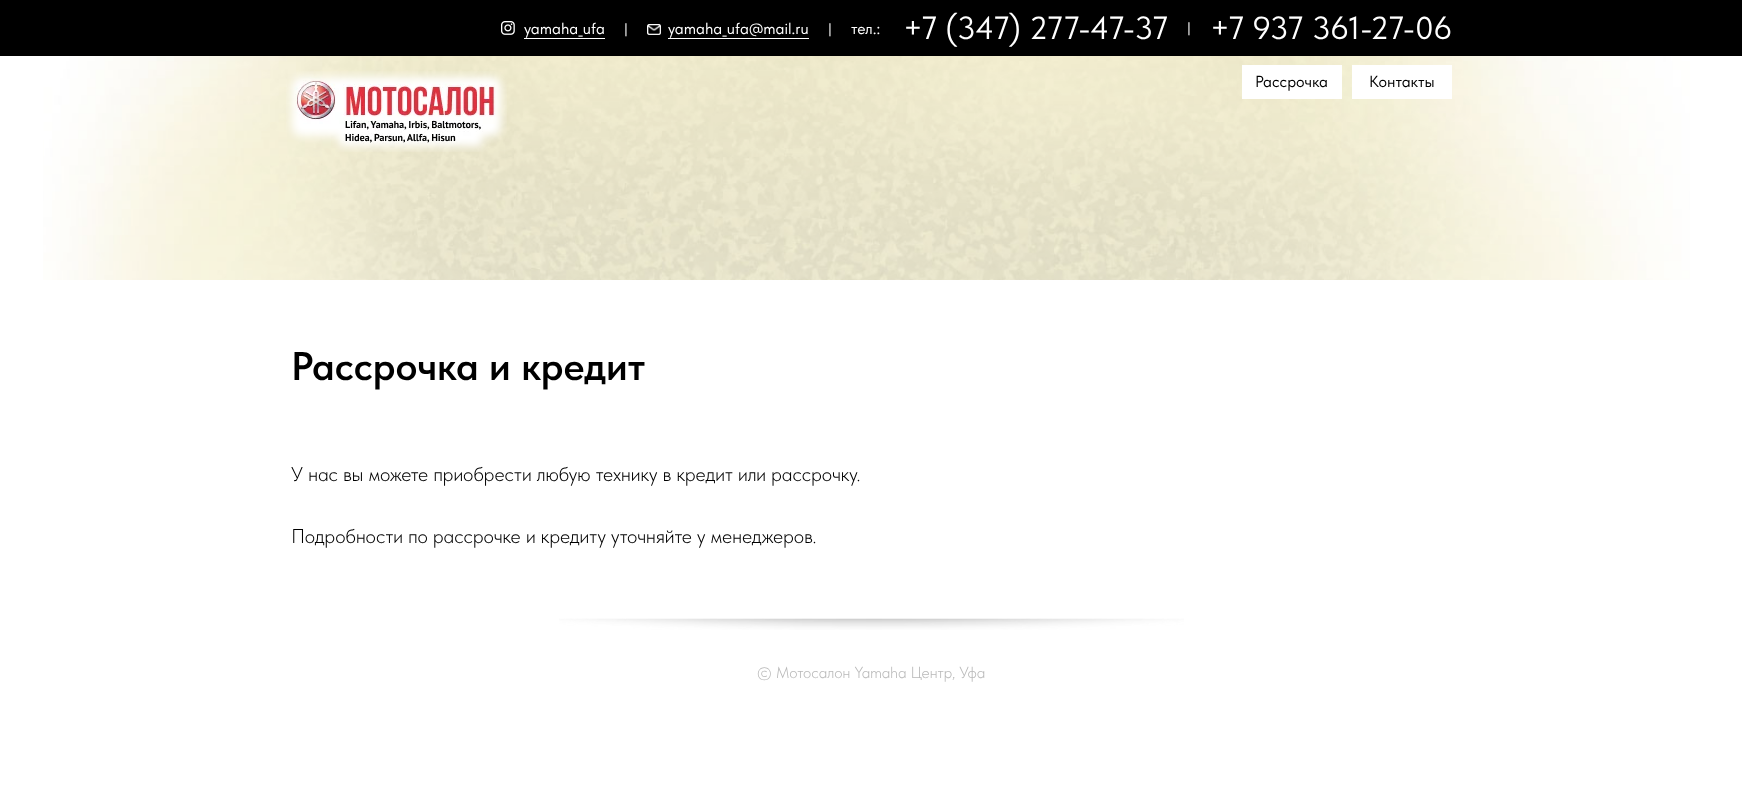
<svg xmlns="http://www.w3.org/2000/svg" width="1742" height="792">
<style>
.a{font:16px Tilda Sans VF;fill:#fff}
.b{font:14px Tilda Sans VF;fill:#fff}
.c{font:32px Tilda Sans VF;fill:#fff}
.d{font:16px Tilda Sans VF;fill:#000}
.e{font:600 40px Tilda Sans VF;fill:#000}
.f{font:300 20px Tilda Sans VF;fill:#000}
.g{font:300 16px Tilda Sans VF;fill:#b9b9b9}
</style>
<rect width="100%" height="100%" fill="#fff"/>
<path fill="#000" d="M0 0h1742v56H0z"/>
<image href="1.png" x="501" y="21" width="14" height="14"/>
<path fill="#fff" d="M524 38h81v1H524z"/>
<image href="2.png" x="647" y="24" width="14" height="11"/>
<path fill="#fff" d="M668 38h141v1H668z"/>
<image href="4.png" x="43" y="56" width="1647" height="224"/>
<image href="3.png" x="286" y="71" width="221" height="81"/>
<path fill="#fff" d="M1242 65h100v34H1242z"/>
<path fill="#fff" d="M1352 65h100v34H1352z"/>
<image href="5.png" x="559" y="618" width="625" height="12"/>
<text class="a" x="524" y="34">yamaha_ufa</text>
<text class="b" x="624" y="33">|</text>
<text class="a" x="668" y="34">yamaha_ufa@mail.ru</text>
<text class="b" x="828" y="33">|</text>
<text class="a" x="851" y="34">тел.:</text>
<text class="c" x="903" y="39">+7 (347) 277-47-37</text>
<text class="b" x="1187" y="32">|</text>
<text class="c" x="1210" y="39">+7 937 361-27-06</text>
<text class="d" x="1255" y="87">Рассрочка</text>
<text class="d" x="1369" y="87">Контакты</text>
<text class="e" x="291" y="380">Рассрочка и кредит</text>
<text class="f" x="291" y="481">У нас вы можете приобрести любую технику в кредит или рассрочку.</text>
<text class="f" x="291" y="543">Подробности по рассрочке и кредиту уточняйте у менеджеров.</text>
<text class="g" x="757" y="678">© Мотосалон Yamaha Центр, Уфа</text>
</svg>
